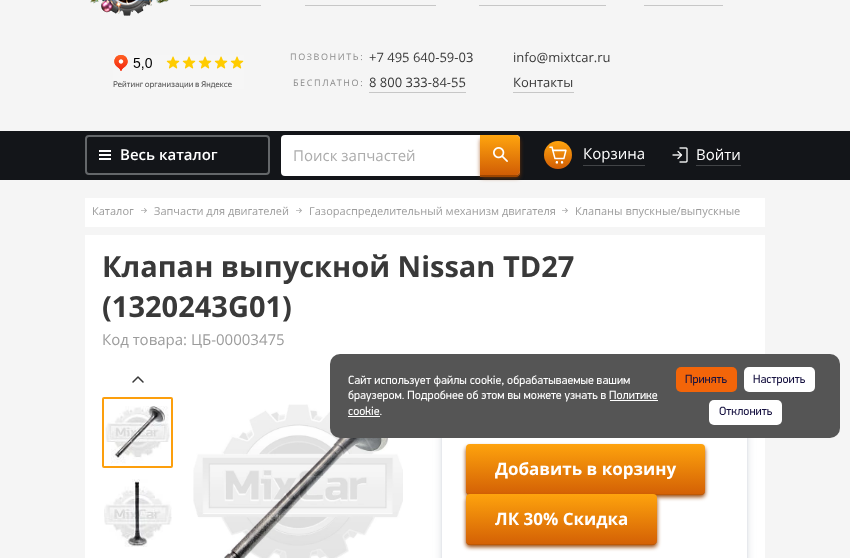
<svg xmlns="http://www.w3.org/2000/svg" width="850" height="558">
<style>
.a{font:9px Open Sans;letter-spacing:1.6px;fill:#8a8a8a}
.b{font:13px Open Sans;fill:#393939}
.c{font:600 15px Open Sans;fill:#fff}
.d{font:15px Open Sans;fill:#acacac}
.e{font:15px Open Sans;fill:#fff}
.f{font:11px Open Sans;fill:#9c9c9c}
.g{font:bold 29px Open Sans;fill:#393939}
.h{font:15px Open Sans;fill:#9c9c9c}
.i{font:bold 17px Open Sans;fill:#fff}
.j{font:12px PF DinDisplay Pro;fill:#fff}
.k{font:12px PF DinDisplay Pro;fill:#171241}
</style>
<defs>
<linearGradient id="g1" gradientUnits="userSpaceOnUse" x1="500" y1="135" x2="500" y2="175"><stop offset="0" stop-color="#ffa50e"/><stop offset="1" stop-color="#d15d05"/></linearGradient>
<linearGradient id="g2" gradientUnits="userSpaceOnUse" x1="558" y1="141" x2="558" y2="169"><stop offset="0" stop-color="#ffa50e"/><stop offset="1" stop-color="#d15d05"/></linearGradient>
<linearGradient id="g3" gradientUnits="userSpaceOnUse" x1="586" y1="444" x2="586" y2="494"><stop offset="0" stop-color="#fea30d"/><stop offset="1" stop-color="#d46105"/></linearGradient>
<linearGradient id="g4" gradientUnits="userSpaceOnUse" x1="562" y1="494" x2="562" y2="544"><stop offset="0" stop-color="#fea30d"/><stop offset="1" stop-color="#d46105"/></linearGradient>
</defs>
<rect width="100%" height="100%" fill="#f5f5f5"/>
<image href="1.png" x="90" y="0" width="79" height="16"/>
<path fill="#c7c7c7" d="M190 5h71v1H190z"/>
<path fill="#c7c7c7" d="M305 5h131v1H305z"/>
<path fill="#c7c7c7" d="M479 5h127v1H479z"/>
<path fill="#c7c7c7" d="M644 5h79v1H644z"/>
<image href="2.png" x="113" y="55" width="131" height="34"/>
<path fill="#c7c7c7" d="M369 92h97v1H369z"/>
<path fill="#c7c7c7" d="M513 92h61v1H513z"/>
<path fill="#131519" d="M0 131h850v49H0z"/>
<rect fill="none" stroke="#64676a" stroke-width="2" x="86" y="136" width="183" height="38" rx="3"/>
<image href="3.png" x="99" y="150" width="12" height="10"/>
<rect fill="#fff" x="281" y="135" width="239" height="41" rx="4"/>
<path fill="#aa4d00" d="M480 175v2h36c2 0 4-2 4-4v-2c0 2-2 4-4 4z"/>
<rect fill="#944000a8" filter="blur(2px)" x="480" y="138" width="40" height="40" rx="4"/>
<path fill="url(#g1)" d="M480 135h36c2 0 4 2 4 4v32c0 2-2 4-4 4h-36z"/>
<image href="4.png" x="493" y="147" width="15" height="15"/>
<circle fill="url(#g2)" cx="558" cy="155" r="14"/>
<image href="5.png" x="549" y="146" width="18" height="18"/>
<path fill="#424447" d="M583 165h62v1H583z"/>
<image href="6.png" x="672" y="147" width="16" height="16"/>
<path fill="#424447" d="M696 165h45v1H696z"/>
<path fill="#fff" d="M85 198h680v29H85z"/>
<image href="7.png" x="141" y="208" width="6" height="5"/>
<image href="7.png" x="296" y="208" width="6" height="5"/>
<image href="7.png" x="562" y="208" width="6" height="5"/>
<path fill="#fff" d="M85 235h680v323H85z"/>
<path fill="none" stroke="#393939" stroke-width="1.5" stroke-linecap="round" stroke-linejoin="round" d="M133 382l5-5l5 5"/>
<rect fill="none" stroke="#fc9f0d" stroke-width="2" x="103" y="398" width="69" height="69" rx="1"/>
<image href="8.png" x="105" y="406" width="65" height="58"/>
<image href="9.png" x="104" y="479" width="68" height="68"/>
<image href="10.png" x="193" y="400" width="210" height="158"/>
<rect fill="#52627e33" filter="blur(5px)" x="442" y="379" width="305" height="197" rx="3"/>
<rect fill="#303c661a" filter="blur(1.5px)" x="442" y="377" width="305" height="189" rx="3"/>
<path fill="#fff" d="M442 438h305v120H442z"/>
<rect fill="#944000" filter="blur(2px)" x="466" y="447" width="239" height="50" rx="4"/>
<path fill="#be5804" d="M466 490c0 3 1 5 4 5h231c3 0 4-2 4-5c0 2-2 4-4 4h-231c-2 0-4-2-4-4z"/>
<rect fill="url(#g3)" x="466" y="444" width="239" height="50" rx="4"/>
<rect fill="#944000" filter="blur(2px)" x="466" y="497" width="191" height="50" rx="4"/>
<path fill="#be5804" d="M466 540c0 3 1 5 4 5h184c2-1 3-3 3-5c0 2-2 4-4 4h-183c-2 0-4-2-4-4z"/>
<rect fill="url(#g4)" x="466" y="494" width="191" height="50" rx="4"/>
<rect fill="#555" x="330" y="354" width="510" height="84" rx="10"/>
<path fill="#fff" d="M610 400h48v1H610z"/>
<path fill="#fff" d="M348 416h32v1H348z"/>
<rect fill="#f36509" x="676" y="367" width="61" height="25" rx="5"/>
<rect fill="#fff" x="744" y="367" width="71" height="25" rx="5"/>
<rect fill="#fff" x="709" y="400" width="73" height="25" rx="5"/>
<text class="a" x="290" y="60">ПОЗВОНИТЬ:</text>
<text class="b" x="369" y="62">+7 495 640-59-03</text>
<text class="a" x="293" y="86">БЕСПЛАТНО:</text>
<text class="b" x="369" y="87">8 800 333-84-55</text>
<text class="b" x="513" y="62">info@mixtcar.ru</text>
<text class="b" x="513" y="87">Контакты</text>
<text class="c" x="120" y="160">Весь каталог</text>
<text class="d" x="293" y="161">Поиск запчастей</text>
<text class="e" x="583" y="159">Корзина</text>
<text class="e" x="696" y="160">Войти</text>
<text class="f" x="92" y="215">Каталог</text>
<text class="f" x="154" y="215">Запчасти для двигателей</text>
<text class="f" x="309" y="215">Газораспределительный механизм двигателя</text>
<text class="f" x="575" y="215">Клапаны впускные/выпускные</text>
<text class="g" x="102" y="277">Клапан выпускной Nissan TD27</text>
<text class="g" x="102" y="317">(1320243G01)</text>
<text class="h" x="102" y="345">Код товара: ЦБ-00003475</text>
<text class="i" x="495" y="475">Добавить в корзину</text>
<text class="i" x="495" y="525">ЛК 30% Скидка</text>
<text class="j" x="348" y="384">Сайт использует файлы cookie, обрабатываемые вашим</text>
<text class="j" x="348" y="399">браузером. Подробнее об этом вы можете узнать в Политике</text>
<text class="j" x="348" y="415">cookie.</text>
<text class="k" x="685" y="383">Принять</text>
<text class="k" x="753" y="383">Настроить</text>
<text class="k" x="719" y="415">Отклонить</text>
</svg>
